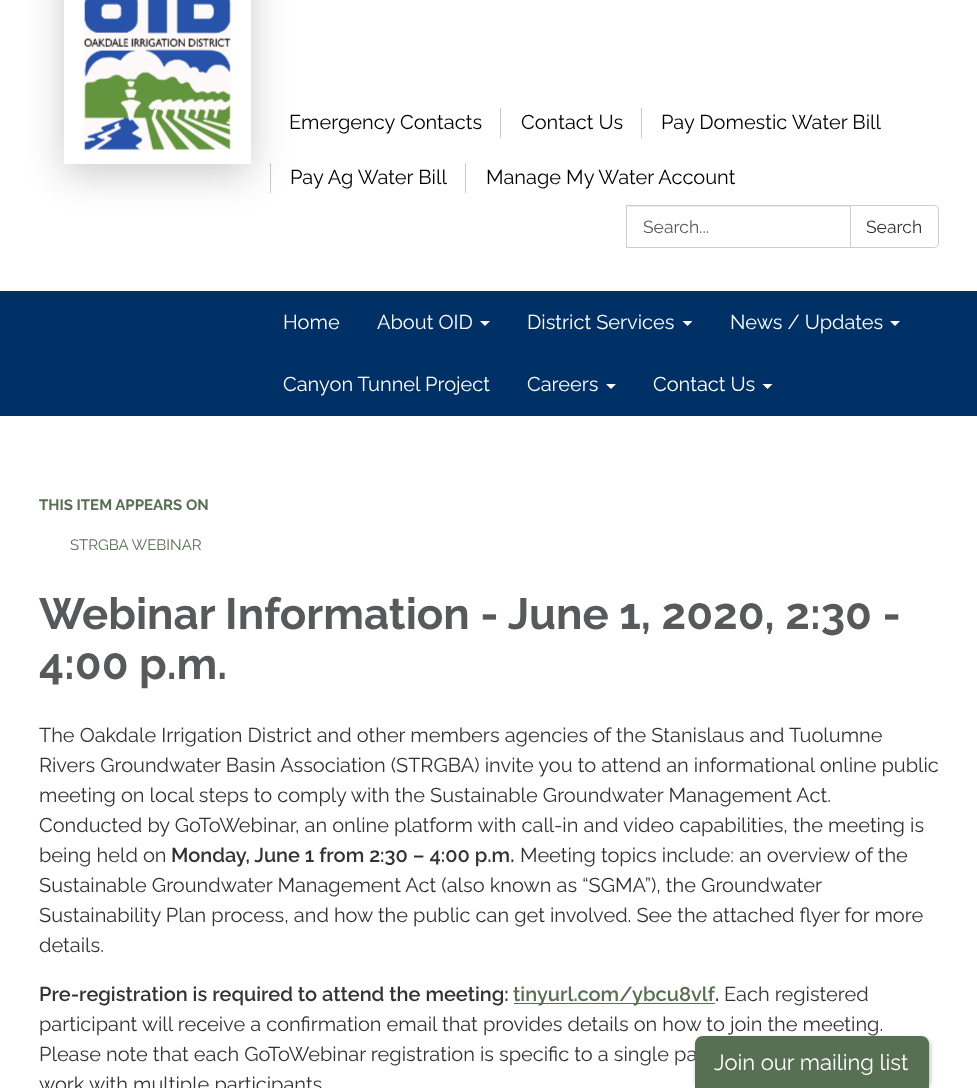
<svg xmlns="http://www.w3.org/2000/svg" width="977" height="1088">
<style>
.a{font:20px Raleway;fill:#000}
.b{font:17.5px Raleway;fill:#58595b}
.c{font:17.5px Raleway;fill:#333}
.d{font:20px Raleway;fill:#fff}
.e{font:bold 15px Raleway;fill:#576f52}
.f{font:15px Raleway;fill:#576f52}
.g{font:bold 43.75px Raleway;fill:#58595b}
.h{font:20px Raleway;fill:#333}
.i{font:600 20px Raleway;fill:#333}
.j{font:600 20px Raleway;fill:#576f52}
.k{font:22px Raleway;fill:#fff}
</style>
<rect width="100%" height="100%" fill="#fff"/>
<path fill="#c8c9cb" d="M270 163h1v30H270z"/>
<path fill="#00000033" filter="blur(19px)" d="M64 -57h187v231H64z"/>
<path fill="#fff" d="M64 0h187v164H64z"/>
<image href="1.png" x="84" y="0" width="148" height="150"/>
<path fill="#c8c9cb" d="M500 108h1v30H500z"/>
<path fill="#c8c9cb" d="M641 108h1v30H641z"/>
<path fill="#c8c9cb" d="M465 163h1v30H465z"/>
<path fill="#ececec" d="M628 206h222v1H628z"/>
<path fill="none" stroke="#ccc" d="M626.5 205.5h224v42H626.5z"/>
<path fill="#fff" stroke="#ccc" d="M850.5 205.5h83.5c2.5 0 4.5 2 4.5 4.5v33c0 2.5-2 4.5-4.5 4.5h-83.5z"/>
<path fill="#003166" d="M0 291h977v125H0z"/>
<path fill="#fff" d="M480 321h10l-5 5z"/>
<path fill="#fff" d="M682.5 321h10l-5 5z"/>
<path fill="#fff" d="M890 321h10l-5 5z"/>
<path fill="#fff" d="M606 384h10l-5 5z"/>
<path fill="#fff" d="M762.5 384h10l-5 5z"/>
<path fill="#576f52" d="M514 1003h201v1H514z"/>
<rect fill="#0000004d" filter="blur(2px)" x="696" y="1038" width="234" height="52" rx="8"/>
<text class="a" x="289" y="129">Emergency Contacts</text>
<text class="a" x="521" y="129">Contact Us</text>
<text class="a" x="661" y="129">Pay Domestic Water Bill</text>
<text class="a" x="290" y="184">Pay Ag Water Bill</text>
<text class="a" x="486" y="184">Manage My Water Account</text>
<text class="b" x="643" y="233">Search...</text>
<text class="c" x="866" y="233">Search</text>
<text class="d" x="283" y="329">Home</text>
<text class="d" x="377" y="329">About OID</text>
<text class="d" x="527" y="329">District Services</text>
<text class="d" x="730" y="329">News / Updates</text>
<text class="d" x="283" y="391">Canyon Tunnel Project</text>
<text class="d" x="527" y="391">Careers</text>
<text class="d" x="653" y="391">Contact Us</text>
<text class="e" x="39" y="510">THIS ITEM APPEARS ON</text>
<text class="f" x="70" y="550">STRGBA WEBINAR</text>
<text class="g" x="39" y="629">Webinar Information - June 1, 2020, 2:30 -</text>
<text class="g" x="39" y="679">4:00 p.m.</text>
<text class="h" x="39" y="742">The Oakdale Irrigation District and other members agencies of the Stanislaus and Tuolumne</text>
<text class="h" x="39" y="772">Rivers Groundwater Basin Association (STRGBA) invite you to attend an informational online public</text>
<text class="h" x="39" y="802">meeting on local steps to comply with the Sustainable Groundwater Management Act.</text>
<text class="h" x="39" y="832">Conducted by GoToWebinar, an online platform with call-in and video capabilities, the meeting is</text>
<text class="h" x="39" y="862">being held on</text>
<text class="i" x="171" y="862">Monday, June 1 from 2:30 – 4:00 p.m.</text>
<text class="h" x="520" y="862">Meeting topics include: an overview of the</text>
<text class="h" x="39" y="892">Sustainable Groundwater Management Act (also known as “SGMA”), the Groundwater</text>
<text class="h" x="39" y="922">Sustainability Plan process, and how the public can get involved. See the attached flyer for more</text>
<text class="h" x="39" y="952">details.</text>
<text class="i" x="39" y="1001">Pre-registration is required to attend the meeting:</text>
<text class="j" x="513" y="1001">tinyurl.com/ybcu8vlf</text>
<text class="i" x="715" y="1001">.</text>
<text class="h" x="724" y="1001">Each registered</text>
<text class="h" x="39" y="1031">participant will receive a confirmation email that provides details on how to join the meeting.</text>
<text class="h" x="39" y="1061">Please note that each GoToWebinar registration is specific to a single pa</text>
<text class="h" x="39" y="1091">work with multiple participants</text>
<path fill="#576f52" d="M703 1036h218c4.5 0 8 3.5 8 8v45h-234v-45c0-4.5 3.5-8 8-8z"/>
<text class="k" x="714" y="1070">Join our mailing list</text>
</svg>
